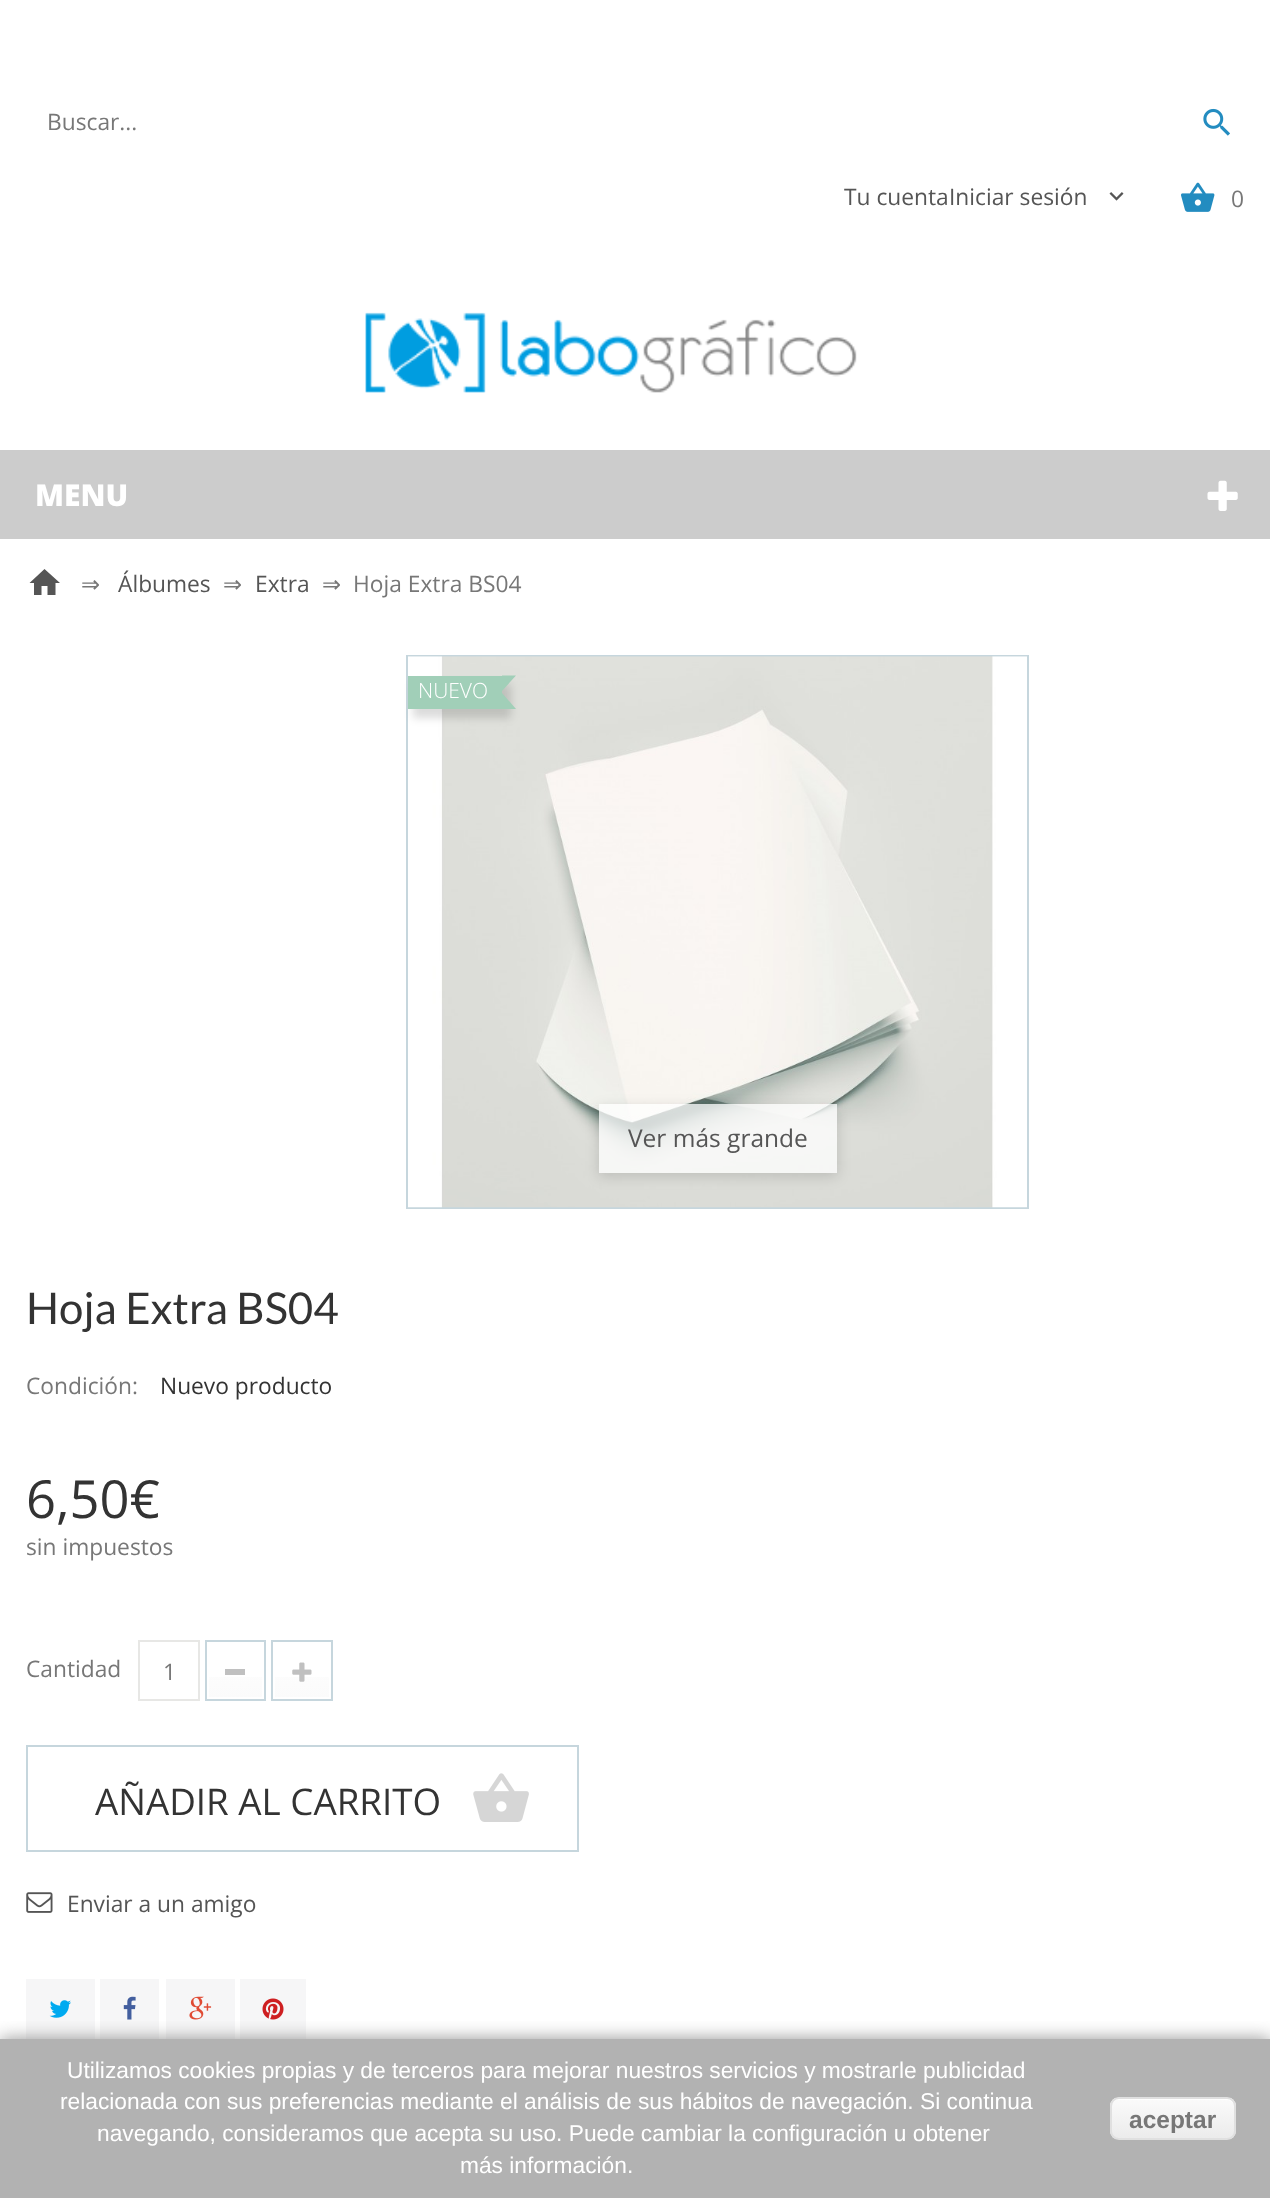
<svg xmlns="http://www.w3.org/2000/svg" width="1270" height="2198">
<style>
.a{font:22.75px Open Sans;fill:#777}
.b{font:22.75px Open Sans;fill:#555}
.c{font:800 30px Open Sans;fill:#fff}
.d{font:22.75px DejaVu Sans;fill:#777}
.e{font:300 21px Open Sans;fill:#fff}
.f{font:24.5px Open Sans;fill:#555}
.g{font:43.75px Lato;fill:#333}
.h{font:22.75px Open Sans;fill:#333}
.i{font:52.5px Open Sans;fill:#333}
.j{font:36.75px Open Sans;fill:#333}
.k{font:22.75px Liberation Sans;fill:#fff}
.l{font:bold 24.5px Liberation Sans;fill:#777}
</style>
<defs>
<clipPath id="clip1"><path d="M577 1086h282v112h-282zm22 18h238v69h-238z" clip-rule="evenodd"/></clipPath>
<linearGradient id="g1" gradientUnits="userSpaceOnUse" x1="235" y1="1643" x2="235" y2="1698"><stop offset="0" stop-color="#fff"/><stop offset="1" stop-color="#fbfbfb"/></linearGradient>
<linearGradient id="g2" gradientUnits="userSpaceOnUse" x1="302" y1="1643" x2="302" y2="1698"><stop offset="0" stop-color="#fff"/><stop offset="1" stop-color="#fbfbfb"/></linearGradient>
<clipPath id="clip2"><path d="M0 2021h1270v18H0z"/></clipPath>
<clipPath id="clip3"><rect x="1110" y="2097" width="126" height="43" rx="9"/></clipPath>
<linearGradient id="g3" gradientUnits="userSpaceOnUse" x1="1111" y1="2098" x2="1111" y2="2139"><stop offset="0.05" stop-color="#fafafa"/><stop offset="1" stop-color="#ebebeb"/></linearGradient>
</defs>
<rect width="100%" height="100%" fill="#fff"/>
<path fill="#b2b2b2" d="M0 2039h1270v159H0z"/>
<image href="1.png" x="1203" y="108" width="27" height="28"/>
<image href="2.png" x="1109" y="192" width="15" height="9"/>
<image href="3.png" x="1181" y="182" width="34" height="30"/>
<image href="4.png" x="365" y="312" width="492" height="81"/>
<path fill="#ccc" d="M0 450h1270v89H0z"/>
<image href="5.png" x="1207" y="480" width="31" height="31"/>
<path fill="#555" d="M41.5 595v-9h6v9h8v-12h4.5l-15.5-14l-15 14h4.5v12z"/>
<path fill="none" stroke="#c6d6dd" stroke-width="2" d="M407 656h621v552H407z"/>
<image href="6.png" x="408" y="656" width="619" height="552"/>
<path fill="#00000024" filter="blur(4.5px)" d="M413 684h98v34H413z"/>
<path fill="#a1cfb8" d="M408 676h94v33H408z"/>
<path fill="#a1cfb8" d="M502 709v-16l14 16zm0-33.5h14l-14 15.5z"/>
<g clip-path="url(#clip1)">
<path fill="#00000026" filter="blur(7px)" d="M599 1108h238v68H599z"/>
</g>
<path fill="#ffffffbf" d="M599 1104h238v69H599z"/>
<path fill="none" stroke="#e7e7e5" stroke-width="2" d="M139 1641h60v59H139z"/>
<path fill="none" stroke="#c6d6dd" stroke-width="2" d="M206 1641h59v59H206z"/>
<path fill="url(#g1)" d="M209 1677h53v20H209z"/>
<path fill="#c0c0c0" d="M225 1669h20v6H225z"/>
<path fill="none" stroke="#c6d6dd" stroke-width="2" d="M272 1641h60v59H272z"/>
<path fill="url(#g2)" d="M275 1677h54v20H275z"/>
<image href="7.png" x="292" y="1662" width="20" height="20"/>
<path fill="none" stroke="#c6d6dd" stroke-width="2" d="M27 1746h551v105H27z"/>
<image href="8.png" x="473" y="1773" width="56" height="49"/>
<image href="9.png" x="26" y="1892" width="27" height="21"/>
<path fill="#f6f6f7" d="M26 1979h69v60H26z"/>
<image href="10.png" x="49" y="2000" width="22" height="18"/>
<path fill="#f6f6f7" d="M100 1979h59v60H100z"/>
<image href="11.png" x="123" y="1996" width="13" height="24"/>
<path fill="#f6f6f7" d="M166 1979h69v60H166z"/>
<image href="12.png" x="189" y="1996" width="23" height="24"/>
<path fill="#f6f6f7" d="M240 1979h66v60H240z"/>
<image href="13.png" x="262" y="1998" width="22" height="22"/>
<g clip-path="url(#clip2)">
<path fill="#878787e6" filter="blur(9px)" d="M0 2039h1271v159H0z"/>
</g>
<g clip-path="url(#clip3)">
<path fill="url(#g3)" d="M1110 2098h126v41H1110z"/>
</g>
<path fill="#fff" d="M1118 2100h109c4 0 7 3 7 7c0-14-15-9-25-9h-73c-10 0-25-5-25 9c0-4 3-7 7-7z"/>
<rect fill="none" stroke="#e0e0e0" stroke-width="2" x="1111" y="2098" width="124" height="41" rx="8"/>
<text class="a" x="47" y="130">Buscar...</text>
<text class="b" x="844" y="205">Tu cuenta</text>
<text class="b" x="949" y="205">Iniciar sesión</text>
<text class="a" x="1231" y="207">0</text>
<text class="c" x="35" y="506">MENU</text>
<text class="d" x="81" y="592">⇒</text>
<text class="b" x="118" y="592">Álbumes</text>
<text class="d" x="223" y="592">⇒</text>
<text class="b" x="255" y="592">Extra</text>
<text class="d" x="322" y="592">⇒</text>
<text class="a" x="353" y="592">Hoja Extra BS04</text>
<text class="e" x="418" y="698">NUEVO</text>
<text class="f" x="628" y="1147">Ver más grande</text>
<text class="g" x="26" y="1324">Hoja Extra BS04</text>
<text class="a" x="26" y="1394">Condición:</text>
<text class="h" x="160" y="1394">Nuevo producto</text>
<text class="i" x="26" y="1518">6,50€</text>
<text class="a" x="26" y="1555">sin impuestos</text>
<text class="a" x="26" y="1677">Cantidad</text>
<text class="a" x="163" y="1680">1</text>
<text class="j" x="95" y="1815">AÑADIR AL CARRITO</text>
<text class="b" x="67" y="1912">Enviar a un amigo</text>
<text class="k" x="67" y="2078">Utilizamos cookies propias y de terceros para mejorar nuestros servicios y mostrarle publicidad</text>
<text class="k" x="60" y="2109">relacionada con sus preferencias mediante el análisis de sus hábitos de navegación. Si continua</text>
<text class="k" x="97" y="2141">navegando, consideramos que acepta su uso. Puede cambiar la configuración u obtener</text>
<text class="k" x="460" y="2173">más información.</text>
<text class="l" x="1129" y="2128">aceptar</text>
</svg>
